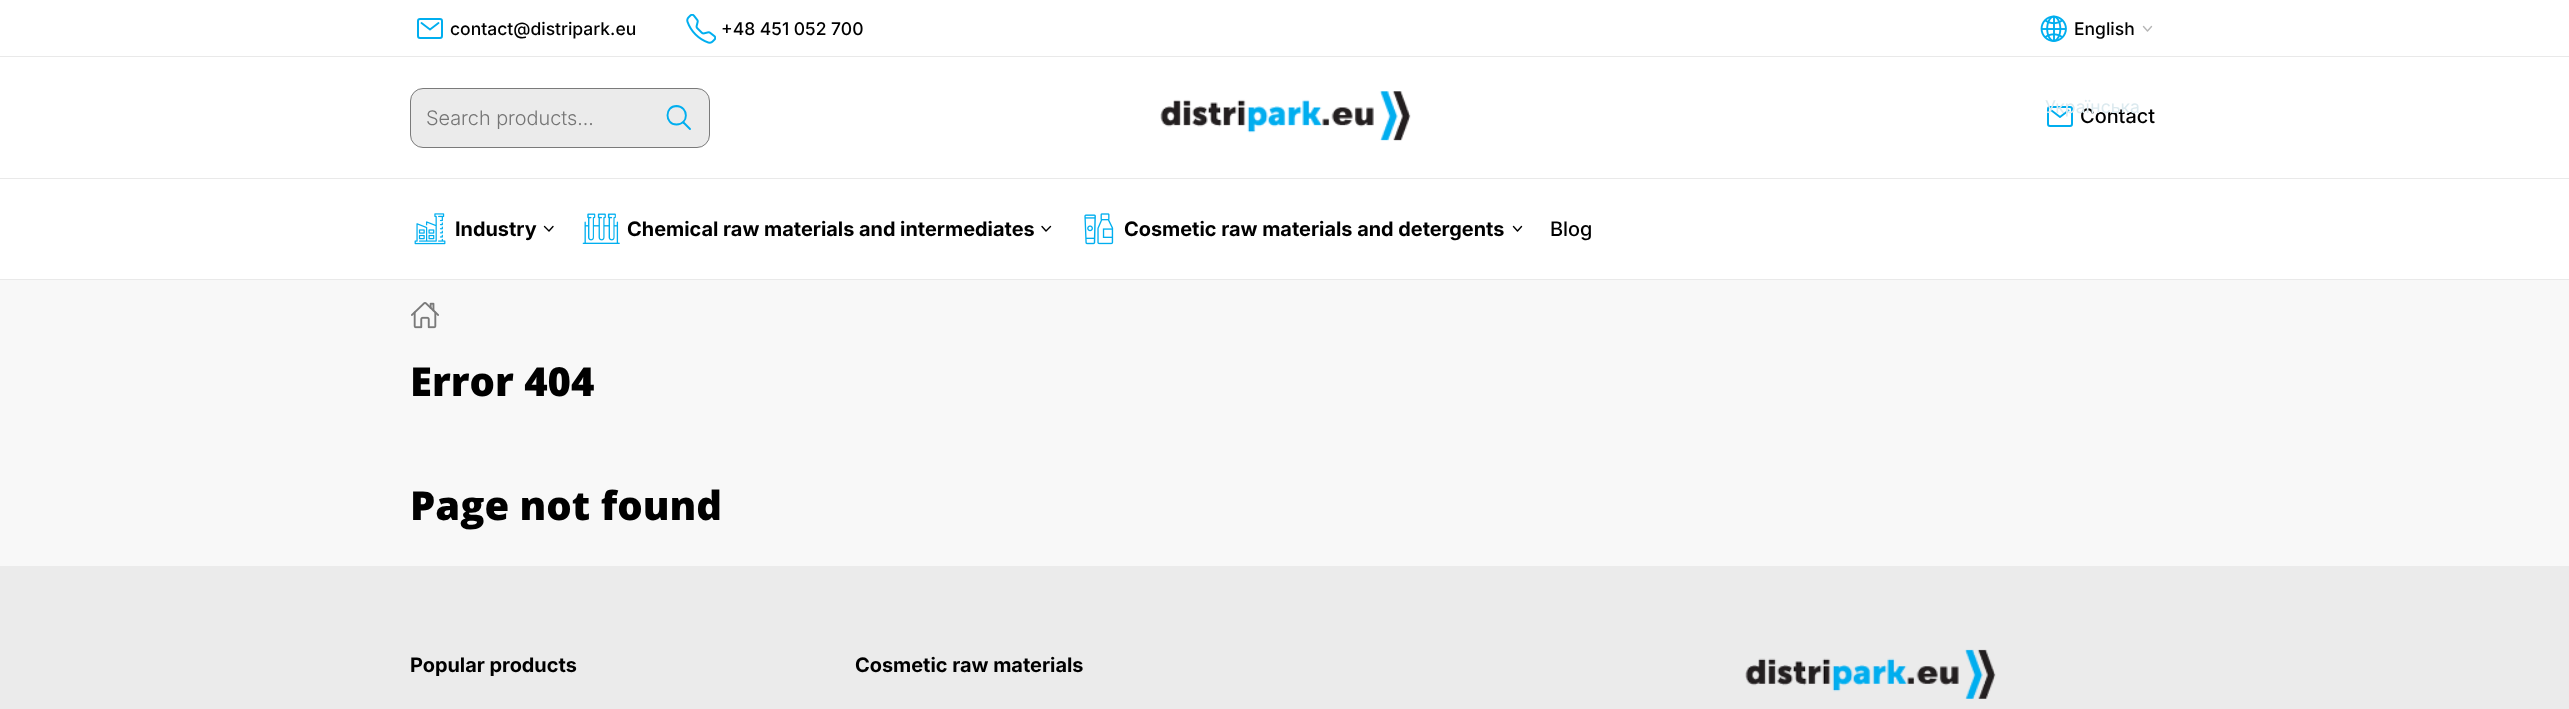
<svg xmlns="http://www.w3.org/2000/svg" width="2569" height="709">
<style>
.a{font:500 17.5px Inter;fill:#000}
.b{font:300 20px Inter;fill:#757575}
.c{font:500 20px 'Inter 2';fill:#000}
.d{font:17.5px Inter;fill:#dceaef}
.e{font:bold 20px Inter;fill:#000}
.f{font:800 40px Open Sans;fill:#000}
</style>
<rect width="100%" height="100%" fill="#fff"/>
<path fill="#e9e9e9" d="M0 56h2569v1H0z"/>
<rect fill="none" stroke="#00aeef" stroke-width="2" x="418" y="19" width="24" height="19" rx="2"/>
<path fill="none" stroke="#00aeef" stroke-width="1.9" stroke-linecap="round" stroke-linejoin="round" d="M421.5 23l8.5 6.5l8.5-6.5"/>
<image href="1.png" x="686" y="14" width="30" height="30"/>
<image href="2.png" x="2040" y="15" width="27" height="27"/>
<path fill="none" stroke="#b6b6b6" stroke-width="1.4" stroke-linecap="round" stroke-linejoin="round" d="M2143.5 26.5l4 4.5l4-4.5"/>
<path fill="#e9e9e9" d="M0 178h2569v1H0z"/>
<rect fill="#ebebeb" stroke="#7a7a7a" x="410.5" y="88.5" width="299" height="59" rx="12.5"/>
<path fill="none" stroke="#00aeef" stroke-width="1.9" d="M676.5 106c-12 0-12 18.5 0 18.5c12.5 0 12.5-18 0-18.5z"/>
<path fill="none" stroke="#00aeef" stroke-width="1.9" stroke-linecap="round" d="M683.5 122.5l6.5 6.5"/>
<image href="3.png" x="1160" y="91" width="251" height="50"/>
<rect fill="none" stroke="#00aeef" stroke-width="2" x="2048" y="107" width="24" height="19" rx="2"/>
<path fill="none" stroke="#00aeef" stroke-width="1.9" stroke-linecap="round" stroke-linejoin="round" d="M2051.5 110.5l8.5 6.5l8.5-6.5"/>
<path fill="#e9e9e9" d="M0 279h2569v1H0z"/>
<image href="4.png" x="414" y="213" width="32" height="32"/>
<path fill="none" stroke="#000" stroke-width="1.4" stroke-linecap="round" stroke-linejoin="round" d="M544.5 226.5l4.5 4.5l4-4.5"/>
<image href="5.png" x="582" y="213" width="38" height="31"/>
<path fill="none" stroke="#000" stroke-width="1.4" stroke-linecap="round" stroke-linejoin="round" d="M1042 226.5l4 4.5l4.5-4.5"/>
<image href="6.png" x="1084" y="213" width="30" height="32"/>
<path fill="none" stroke="#000" stroke-width="1.4" stroke-linecap="round" stroke-linejoin="round" d="M1513.5 226.5l4 4.5l4-4.5"/>
<path fill="#f8f8f8" d="M0 280h2569v286H0z"/>
<image href="7.png" x="411" y="302" width="28" height="27"/>
<path fill="#ebebeb" d="M0 566h2569v143H0z"/>
<image href="8.png" x="1745" y="649" width="251" height="50"/>
<text class="a" x="450" y="35">contact@distripark.eu</text>
<text class="a" x="721" y="35">+48 451 052 700</text>
<text class="a" x="2074" y="35">English</text>
<text class="b" x="426" y="125">Search products...</text>
<text class="c" x="2080" y="123">Contact</text>
<text class="d" x="2045" y="113">Українська</text>
<text class="e" x="455" y="236">Industry</text>
<text class="e" x="627" y="236">Chemical raw materials and intermediates</text>
<text class="e" x="1124" y="236">Cosmetic raw materials and detergents</text>
<text class="c" x="1550" y="236">Blog</text>
<text class="f" x="410" y="396">Error 404</text>
<text class="f" x="410" y="520">Page not found</text>
<text class="e" x="410" y="672">Popular products</text>
<text class="e" x="855" y="672">Cosmetic raw materials</text>
</svg>
